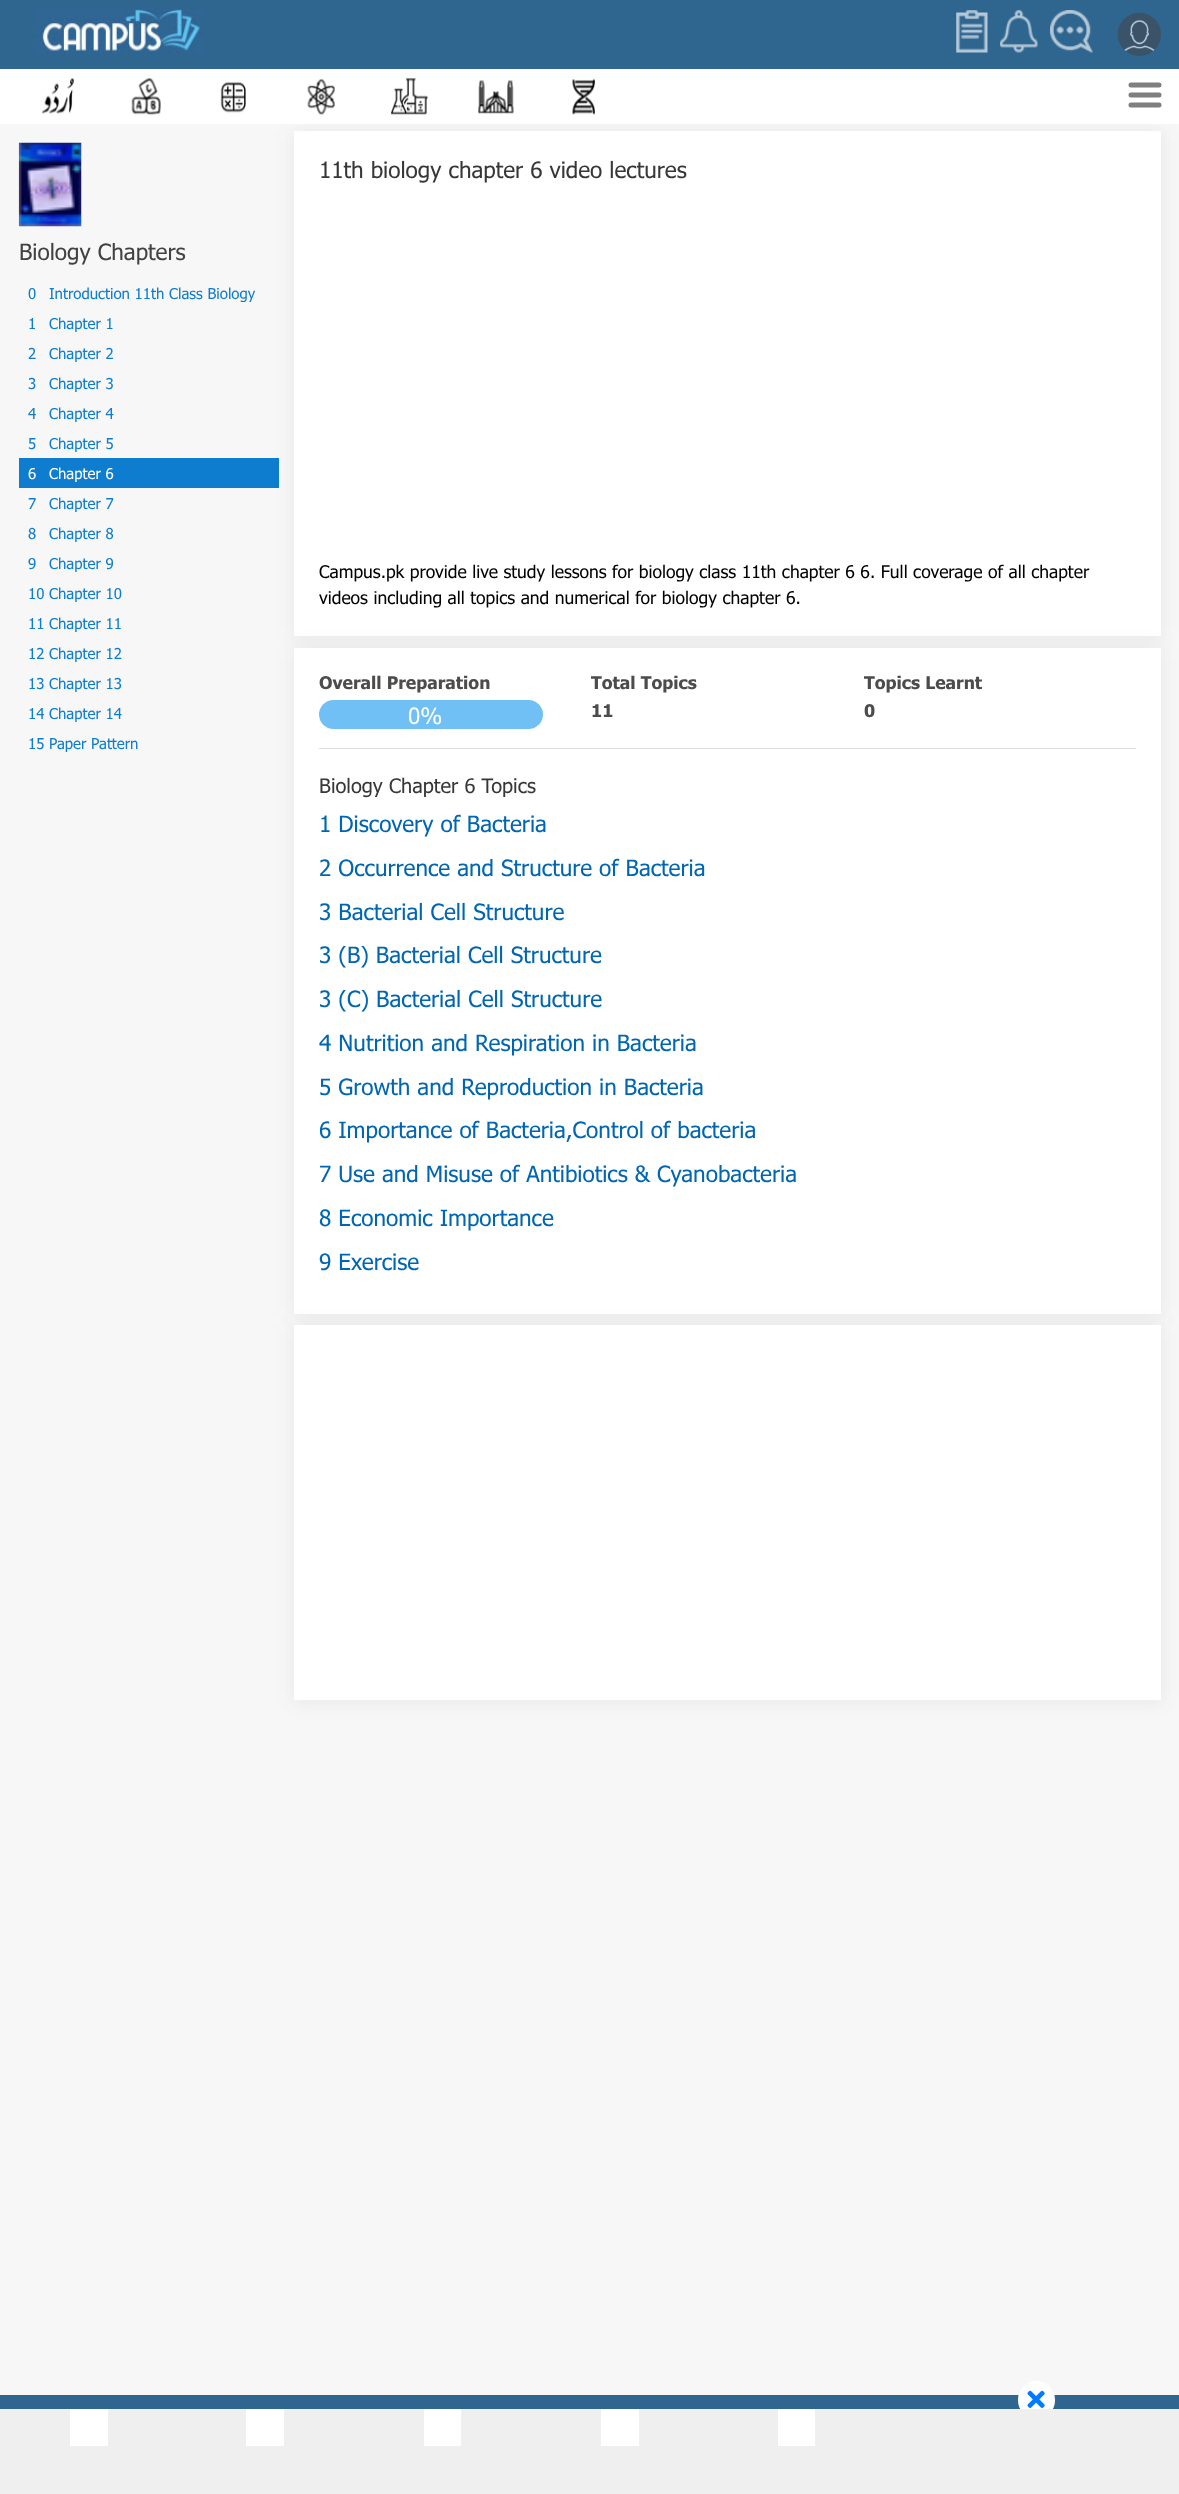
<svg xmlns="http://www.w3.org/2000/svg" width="1179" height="2494">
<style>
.a{font:22.5px Tahoma;fill:#424242}
.b{font:15px Tahoma;fill:#0e7dcf}
.c{font:15px Tahoma;fill:#fff}
.d{font:22.5px Tahoma;fill:#373737}
.e{font:17.5px Tahoma;fill:#000}
.f{font:bold 17.5px Tahoma;fill:#4c4c4c}
.g{font:22.5px Tahoma;fill:#fff}
.h{font:20px Tahoma;fill:#373737}
.i{font:22.5px Tahoma;fill:#0066b1}
</style>
<rect width="100%" height="100%" fill="#f7f7f7"/>
<path fill="#0e7dcf" d="M19 458h260v30H19z"/>
<path fill="#45414e14" filter="blur(9.5px)" d="M293 131h870v508H293z"/>
<path fill="#fff" d="M0 69h1179v55H0z"/>
<path fill="#2f6690" d="M0 0h1179v69H0z"/>
<image href="1.png" x="36" y="8" width="168" height="46"/>
<image href="2.png" x="956" y="10" width="32" height="43"/>
<image href="3.png" x="1000" y="10" width="38" height="43"/>
<image href="4.png" x="1050" y="10" width="43" height="43"/>
<image href="5.png" x="1117" y="12" width="44" height="44"/>
<image href="6.png" x="42" y="78" width="32" height="36"/>
<image href="7.png" x="131" y="78" width="30" height="37"/>
<image href="8.png" x="220" y="82" width="26" height="31"/>
<image href="9.png" x="307" y="79" width="28" height="36"/>
<image href="10.png" x="391" y="78" width="37" height="37"/>
<image href="11.png" x="478" y="80" width="36" height="34"/>
<image href="12.png" x="572" y="79" width="23" height="36"/>
<path fill="none" stroke="#7f7f7f" stroke-width="5" stroke-linecap="round" d="M1131 85h28m-28 10h28m-28 10h28"/>
<image href="13.png" x="18" y="142" width="64" height="85"/>
<path fill="#fff" d="M294 131h867v505H294z"/>
<path fill="#45414e14" filter="blur(9.5px)" d="M293 648h870v668H293z"/>
<path fill="#fff" d="M294 648h867v666H294z"/>
<path fill="#ddd" d="M319 748h817v1H319z"/>
<rect fill="#70c0f5" x="319" y="700" width="224" height="29" rx="14.5"/>
<path fill="#45414e14" filter="blur(9.5px)" d="M293 1325h870v378H293z"/>
<path fill="#fff" d="M294 1325h867v375H294z"/>
<path fill="#2f6690" d="M0 2395h1179v14H0z"/>
<rect fill="#fff" x="1018" y="2381" width="37" height="38" rx="18.5"/>
<path fill="#efefef" d="M0 2409h1179v85H0z"/>
<path fill="#fff" d="M70 2409h38v37H70z"/>
<path fill="#fff" d="M246 2409h38v37H246z"/>
<path fill="#fff" d="M424 2409h37v37H424z"/>
<path fill="#fff" d="M601 2409h38v37H601z"/>
<path fill="#fff" d="M778 2409h37v37H778z"/>
<image href="14.png" x="1027" y="2390" width="18" height="18"/>
<text class="a" x="19" y="260">Biology Chapters</text>
<text class="b" x="28" y="299">0</text>
<text class="b" x="49" y="299">Introduction 11th Class Biology</text>
<text class="b" x="28" y="329">1</text>
<text class="b" x="49" y="329">Chapter 1</text>
<text class="b" x="28" y="359">2</text>
<text class="b" x="49" y="359">Chapter 2</text>
<text class="b" x="28" y="389">3</text>
<text class="b" x="49" y="389">Chapter 3</text>
<text class="b" x="28" y="419">4</text>
<text class="b" x="49" y="419">Chapter 4</text>
<text class="b" x="28" y="449">5</text>
<text class="b" x="49" y="449">Chapter 5</text>
<text class="c" x="28" y="479">6</text>
<text class="c" x="49" y="479">Chapter 6</text>
<text class="b" x="28" y="509">7</text>
<text class="b" x="49" y="509">Chapter 7</text>
<text class="b" x="28" y="539">8</text>
<text class="b" x="49" y="539">Chapter 8</text>
<text class="b" x="28" y="569">9</text>
<text class="b" x="49" y="569">Chapter 9</text>
<text class="b" x="28" y="599">10</text>
<text class="b" x="49" y="599">Chapter 10</text>
<text class="b" x="28" y="629">11</text>
<text class="b" x="49" y="629">Chapter 11</text>
<text class="b" x="28" y="659">12</text>
<text class="b" x="49" y="659">Chapter 12</text>
<text class="b" x="28" y="689">13</text>
<text class="b" x="49" y="689">Chapter 13</text>
<text class="b" x="28" y="719">14</text>
<text class="b" x="49" y="719">Chapter 14</text>
<text class="b" x="28" y="749">15</text>
<text class="b" x="49" y="749">Paper Pattern</text>
<text class="d" x="319" y="178">11th biology chapter 6 video lectures</text>
<text class="e" x="319" y="578">Campus.pk provide live study lessons for biology class 11th chapter 6 6. Full coverage of all chapter</text>
<text class="e" x="319" y="604">videos including all topics and numerical for biology chapter 6.</text>
<text class="f" x="319" y="689">Overall Preparation</text>
<text class="g" x="408" y="724">0%</text>
<text class="f" x="591" y="689">Total Topics</text>
<text class="f" x="591" y="717">11</text>
<text class="f" x="864" y="689">Topics Learnt</text>
<text class="f" x="864" y="717">0</text>
<text class="h" x="319" y="793">Biology Chapter 6 Topics</text>
<text class="i" x="319" y="832">1 Discovery of Bacteria</text>
<text class="i" x="319" y="876">2 Occurrence and Structure of Bacteria</text>
<text class="i" x="319" y="920">3 Bacterial Cell Structure</text>
<text class="i" x="319" y="963">3 (B) Bacterial Cell Structure</text>
<text class="i" x="319" y="1007">3 (C) Bacterial Cell Structure</text>
<text class="i" x="319" y="1051">4 Nutrition and Respiration in Bacteria</text>
<text class="i" x="319" y="1095">5 Growth and Reproduction in Bacteria</text>
<text class="i" x="319" y="1138">6 Importance of Bacteria,Control of bacteria</text>
<text class="i" x="319" y="1182">7 Use and Misuse of Antibiotics &amp; Cyanobacteria</text>
<text class="i" x="319" y="1226">8 Economic Importance</text>
<text class="i" x="319" y="1270">9 Exercise</text>
</svg>
